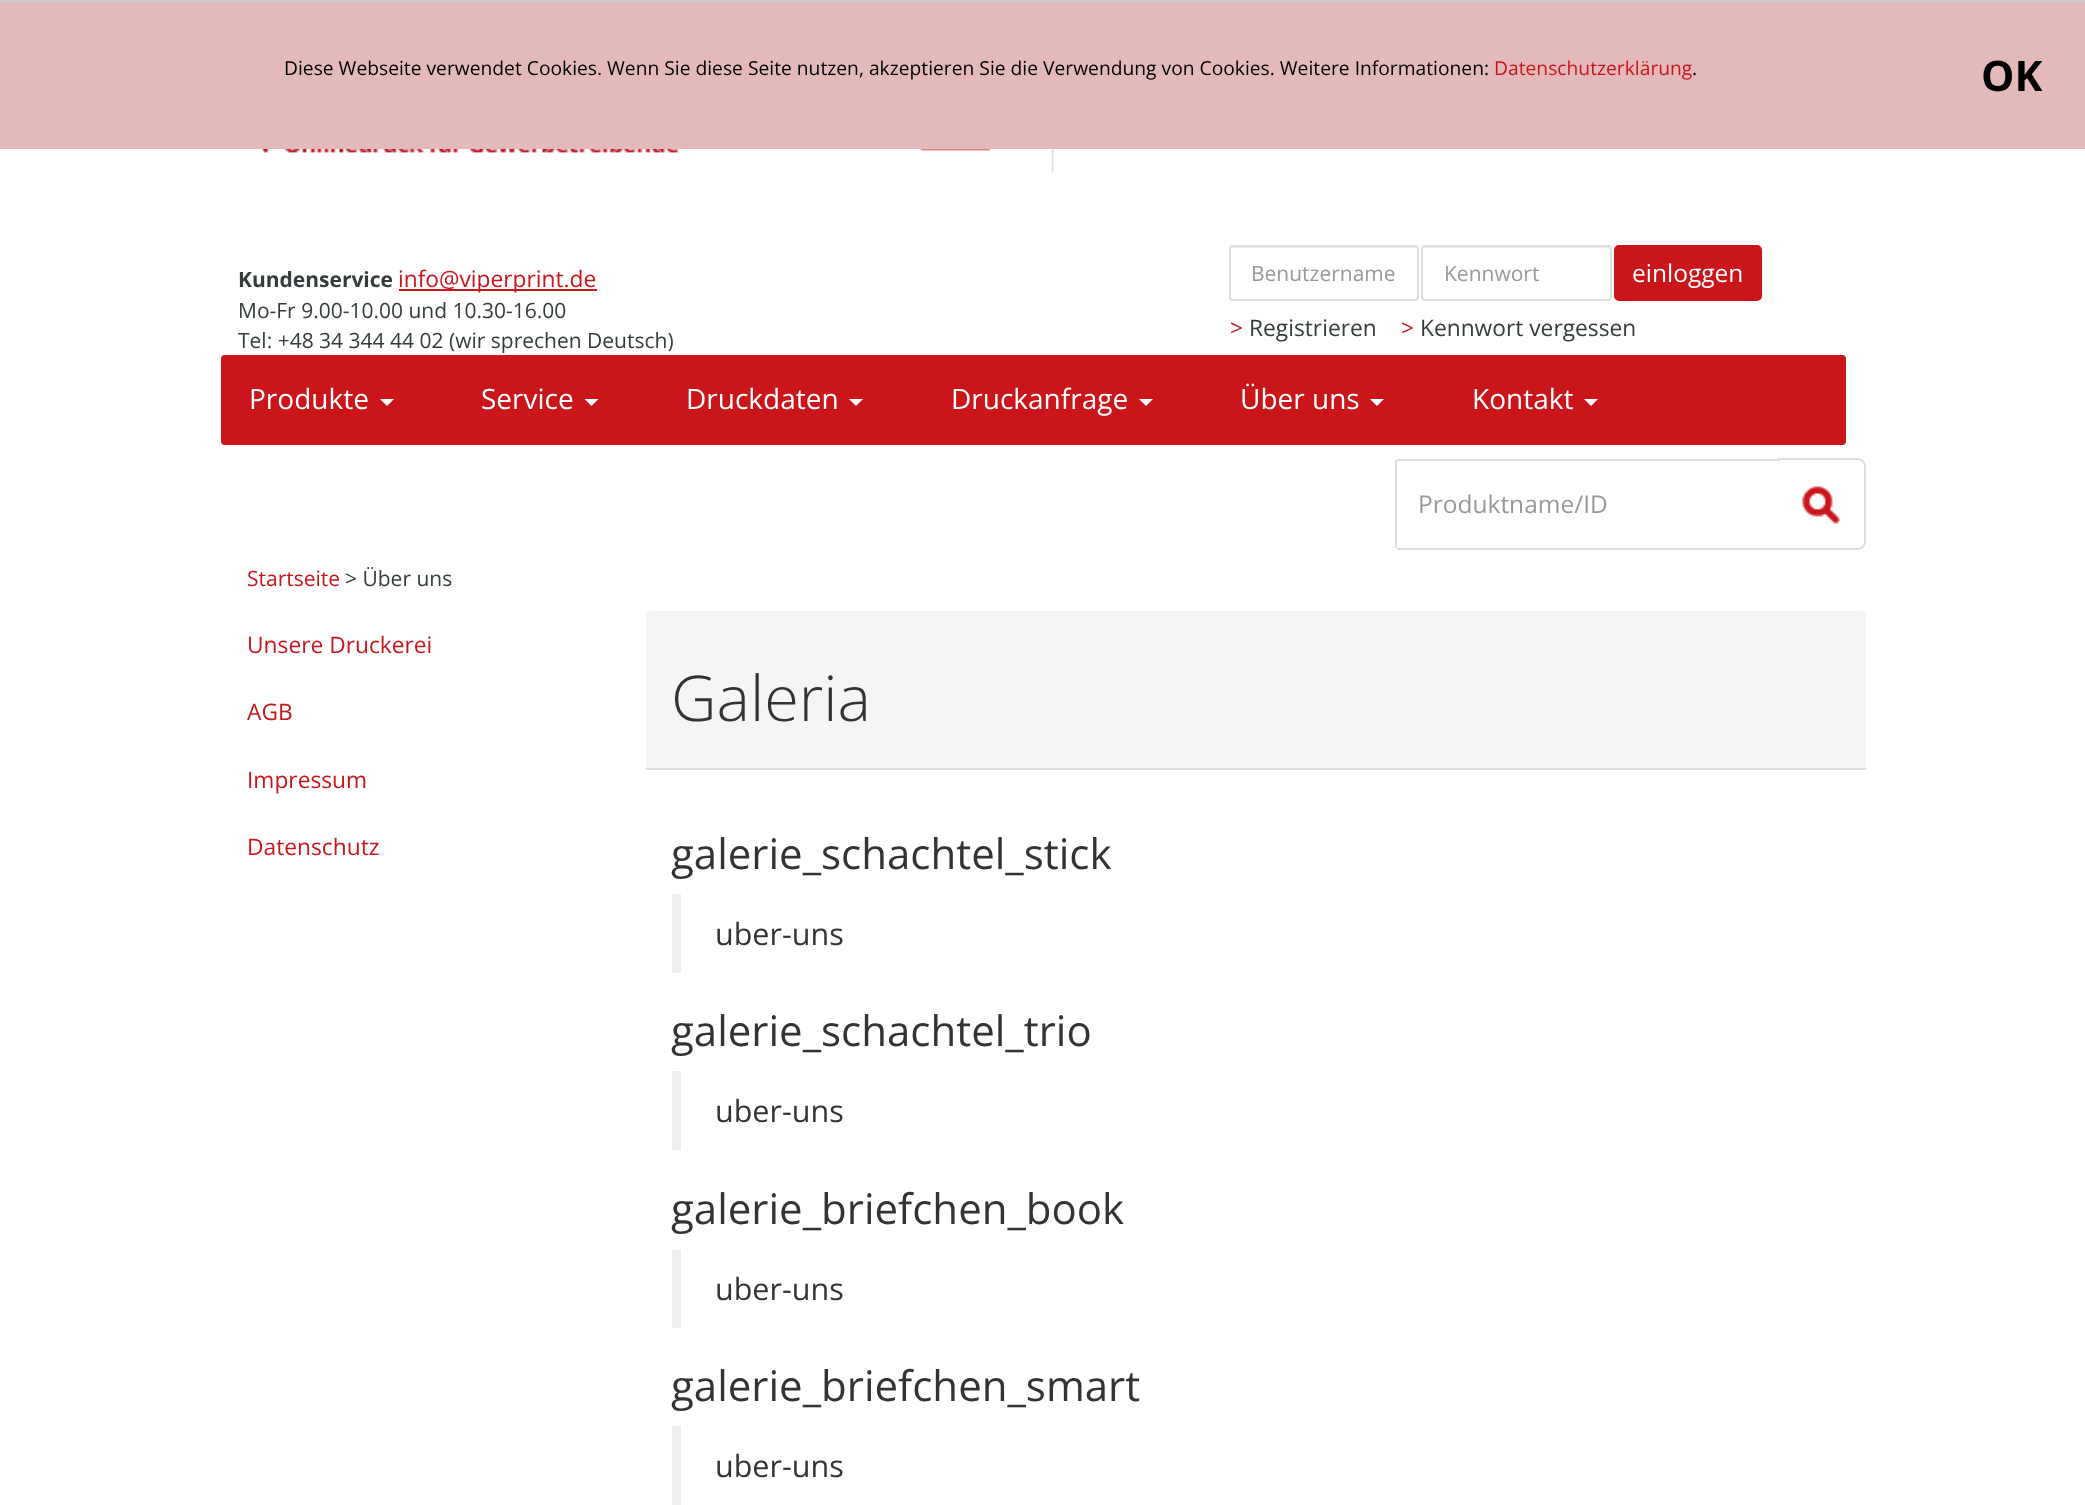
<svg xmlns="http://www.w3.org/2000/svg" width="2085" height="1505">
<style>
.a{font:19.25px Open Sans;fill:#000}
.b{font:19.25px Open Sans;fill:#ca151b}
.c{font:bold 42px Open Sans;fill:#000}
.d{font:bold 21px Open Sans;fill:#343c3d}
.e{font:22.75px Open Sans;fill:#ca151b}
.f{font:21px Open Sans;fill:#343c3d}
.g{font:21px Open Sans;fill:#999}
.h{font:24.5px Open Sans;fill:#fff}
.i{font:22.75px Open Sans;fill:#343c3d}
.j{font:28px Open Sans;fill:#fff}
.k{font:24.5px Open Sans;fill:#999}
.l{font:21px Open Sans;fill:#ca151b}
.m{font:300 63px Open Sans;fill:#333}
.n{font:42px Open Sans;fill:#333}
.o{font:30.5px Open Sans;fill:#333}
</style>
<rect width="100%" height="100%" fill="#fff"/>
<path fill="#e4b9b9" d="M0 2h2085v147H0z"/>
<path fill="#ccc" d="M0 0h2085v2H0z"/>
<image href="1.png" x="262" y="149" width="418" height="4"/>
<image href="2.png" x="913" y="149" width="141" height="25"/>
<path fill="#ca151b" d="M399 289h198v2H399z"/>
<path fill="#ececec" d="M1232 248h184c1 0 2 1 2 2v-1c0-1-1-2-2-2h-184c-1 0-2 1-2 2v1c0-1 1-2 2-2z"/>
<rect fill="none" stroke="#dedede" stroke-width="2" x="1230" y="246" width="188" height="54" rx="3"/>
<path fill="#ececec" d="M1424 248h184c1 0 2 1 2 2v-1c0-1-1-2-2-2h-183c-1 0-2 1-2 2v1z"/>
<rect fill="none" stroke="#dedede" stroke-width="2" x="1422" y="246" width="189" height="54" rx="3"/>
<rect fill="#ca151b" stroke="#ca151b" stroke-width="2" x="1615" y="246" width="146" height="54" rx="4"/>
<rect fill="#ca151b" stroke="#ca151b" stroke-width="2" x="222" y="356" width="1623" height="88" rx="3"/>
<path fill="#fff" d="M380 399h14l-7 7z"/>
<path fill="#fff" d="M584.5 399h14l-7 7z"/>
<path fill="#fff" d="M849 399h14l-7 7z"/>
<path fill="#fff" d="M1139 399h14l-7 7z"/>
<path fill="#fff" d="M1370 399h14l-7 7z"/>
<path fill="#fff" d="M1584 399h14l-7 7z"/>
<path fill="#dedede" fill-rule="evenodd" d="M1778 458h80c4 0 8 4 8 8v76c0 4-4 8-8 8h-80zm0 2h80c3 0 6 3 6 6v76c0 3-3 6-6 6h-80z"/>
<path fill="#dedede" d="M1397 459h383v2H1397z"/>
<path fill="#dedede" d="M1397 548h383v2H1397z"/>
<path fill="#dedede" d="M1395 460h2v88H1395z"/>
<image href="3.png" x="1802" y="486" width="38" height="38"/>
<path fill="#f5f5f5" d="M651 611h1210c3 0 5 2 5 5v154h-1220v-154c0-3 2-5 5-5z"/>
<path fill="#ddd" d="M646 768h1220v2H646z"/>
<path fill="#eee" d="M672 894h9v79H672z"/>
<path fill="#eee" d="M672 1071h9v79H672z"/>
<path fill="#eee" d="M672 1250h9v78H672z"/>
<path fill="#eee" d="M672 1426h9v79H672z"/>
<text class="a" x="284" y="75">Diese Webseite verwendet Cookies. Wenn Sie diese Seite nutzen, akzeptieren Sie die Verwendung von Cookies. Weitere Informationen:</text>
<text class="b" x="1494" y="75">Datenschutzerklärung</text>
<text class="a" x="1692" y="75">.</text>
<text class="c" x="1981" y="91">OK</text>
<text class="d" x="238" y="287">Kundenservice</text>
<text class="e" x="398" y="287">info@viperprint.de</text>
<text class="f" x="238" y="318">Mo-Fr 9.00-10.00 und 10.30-16.00</text>
<text class="f" x="238" y="348">Tel: +48 34 344 44 02 (wir sprechen Deutsch)</text>
<text class="g" x="1251" y="281">Benutzername</text>
<text class="g" x="1444" y="281">Kennwort</text>
<text class="h" x="1632" y="282">einloggen</text>
<text class="e" x="1230" y="336">&gt;</text>
<text class="i" x="1249" y="336">Registrieren</text>
<text class="e" x="1401" y="336">&gt;</text>
<text class="i" x="1420" y="336">Kennwort vergessen</text>
<text class="j" x="249" y="409">Produkte</text>
<text class="j" x="481" y="409">Service</text>
<text class="j" x="686" y="409">Druckdaten</text>
<text class="j" x="951" y="409">Druckanfrage</text>
<text class="j" x="1240" y="409">Über uns</text>
<text class="j" x="1472" y="409">Kontakt</text>
<text class="k" x="1418" y="513">Produktname/ID</text>
<text class="l" x="247" y="586">Startseite</text>
<text class="f" x="345" y="586">&gt; Über uns</text>
<text class="e" x="247" y="653">Unsere Druckerei</text>
<text class="e" x="247" y="720">AGB</text>
<text class="e" x="247" y="788">Impressum</text>
<text class="e" x="247" y="855">Datenschutz</text>
<text class="m" x="671" y="721">Galeria</text>
<text class="n" x="671" y="869">galerie_schachtel_stick</text>
<text class="o" x="715" y="945">uber-uns</text>
<text class="n" x="671" y="1046">galerie_schachtel_trio</text>
<text class="o" x="715" y="1122">uber-uns</text>
<text class="n" x="671" y="1224">galerie_briefchen_book</text>
<text class="o" x="715" y="1300">uber-uns</text>
<text class="n" x="671" y="1401">galerie_briefchen_smart</text>
<text class="o" x="715" y="1477">uber-uns</text>
</svg>
